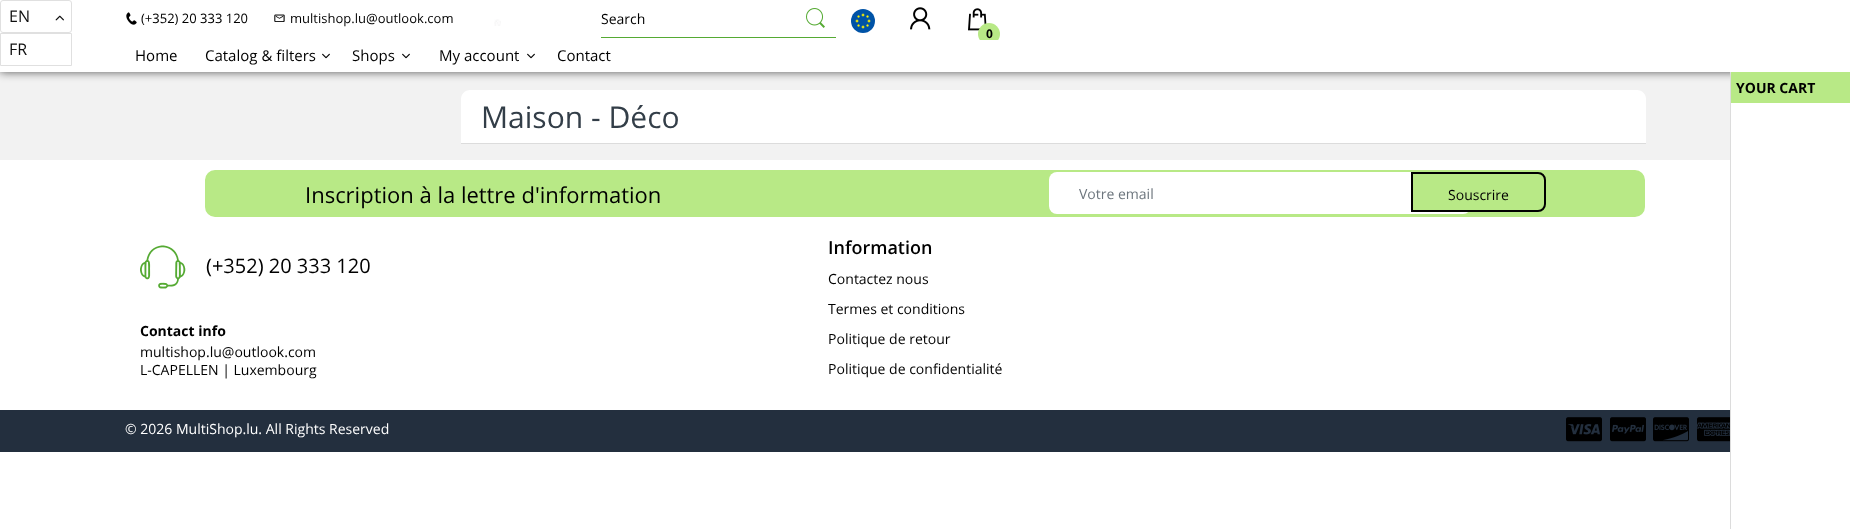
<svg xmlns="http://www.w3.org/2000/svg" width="1850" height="529">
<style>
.a{font:16px Open Sans;fill:#0e0e0e}
.b{font:13px Open Sans;fill:#000}
.c{font:14px Open Sans;fill:#000}
.d{font:bold 12px Open Sans;fill:#000}
.e{font:15px Open Sans;fill:#000}
.f{font:30px Open Sans;fill:#333e48}
.g{font:22px Open Sans;fill:#000}
.h{font:14px Open Sans;fill:#6c757d}
.i{font:20px Open Sans;fill:#000}
.j{font:bold 14px Open Sans;fill:#000}
.k{font:600 18px Open Sans;fill:#000}
.l{font:14px Open Sans;fill:#fff}
</style>
<rect width="100%" height="100%" fill="#fff"/>
<path fill="#f2f2f2" d="M0 72h1730v88H0z"/>
<path fill="#000000a6" filter="blur(5px)" d="M0 0h1850v72H0z"/>
<path fill="#fff" d="M0 0h1850v72H0z"/>
<rect fill="none" stroke="#e0e0e0" x="0.5" y="0.5" width="71" height="32" rx="2.5"/>
<image href="1.png" x="55" y="15" width="9" height="6"/>
<path fill="none" stroke="#e0e0e0" d="M0.5 33.5h71v32H0.5z"/>
<image href="2.png" x="126" y="12" width="11" height="13"/>
<image href="3.png" x="274" y="14" width="11" height="8"/>
<image href="4.png" x="494" y="19" width="7" height="7"/>
<path fill="#5a3" d="M601 37h235v1H601z"/>
<image href="5.png" x="806" y="8" width="19" height="20"/>
<image href="6.png" x="851" y="9" width="24" height="24"/>
<image href="7.png" x="910" y="7" width="21" height="23"/>
<image href="8.png" x="968" y="8" width="19" height="23"/>
<circle fill="#b8e986" cx="989" cy="34" r="11"/>
<path fill="#fff" d="M979 40h20v5H979z"/>
<image href="9.png" x="322" y="53" width="8" height="6"/>
<image href="9.png" x="402" y="53" width="8" height="6"/>
<image href="9.png" x="527" y="53" width="8" height="6"/>
<path fill="#fff" d="M470 90h1167c5 0 9 4 9 9v45h-1185v-45c0-5 4-9 9-9z"/>
<path fill="#dcdcdc" d="M461 143h1185v1H461z"/>
<rect fill="#b8e986" stroke="#b8e986" stroke-width="2" x="206" y="171" width="1438" height="45" rx="9"/>
<rect fill="#fff" x="1049" y="172" width="422" height="42" rx="8"/>
<path fill="#b8e986" stroke="#000" stroke-width="2" d="M1412 173h126c4 0 7 3 7 7v24c0 4-3 7-7 7h-126z"/>
<image href="10.png" x="140" y="245" width="46" height="44"/>
<path fill="#232f3e" d="M0 410h1730v42H0z"/>
<image href="11.png" x="1566" y="417" width="36" height="25"/>
<image href="12.png" x="1610" y="417" width="36" height="25"/>
<image href="13.png" x="1653" y="417" width="36" height="25"/>
<image href="14.png" x="1697" y="417" width="33" height="25"/>
<path fill="#dcdcdc" d="M1730 72h1v457H1730z"/>
<path fill="#b8e986" d="M1731 72h119v31H1731z"/>
<text class="a" x="9" y="22">EN</text>
<text class="a" x="9" y="55">FR</text>
<text class="b" x="141" y="23">(+352) 20 333 120</text>
<text class="b" x="290" y="23">multishop.lu@outlook.com</text>
<text class="c" x="601" y="24">Search</text>
<text class="d" x="986" y="38">0</text>
<text class="e" x="135" y="61">Home</text>
<text class="e" x="205" y="61">Catalog &amp; filters</text>
<text class="e" x="352" y="61">Shops</text>
<text class="e" x="439" y="61">My account</text>
<text class="e" x="557" y="61">Contact</text>
<text class="f" x="481" y="128">Maison - Déco</text>
<text class="g" x="305" y="203">Inscription à la lettre d'information</text>
<text class="h" x="1079" y="199">Votre email</text>
<text class="c" x="1448" y="200">Souscrire</text>
<text class="i" x="206" y="273">(+352) 20 333 120</text>
<text class="j" x="140" y="336">Contact info</text>
<text class="c" x="140" y="357">multishop.lu@outlook.com</text>
<text class="c" x="140" y="375">L-CAPELLEN | Luxembourg</text>
<text class="k" x="828" y="254">Information</text>
<text class="c" x="828" y="284">Contactez nous</text>
<text class="c" x="828" y="314">Termes et conditions</text>
<text class="c" x="828" y="344">Politique de retour</text>
<text class="c" x="828" y="374">Politique de confidentialité</text>
<text class="l" x="125" y="434">© 2026 MultiShop.lu. All Rights Reserved</text>
<text class="j" x="1736" y="93">YOUR CART</text>
</svg>
